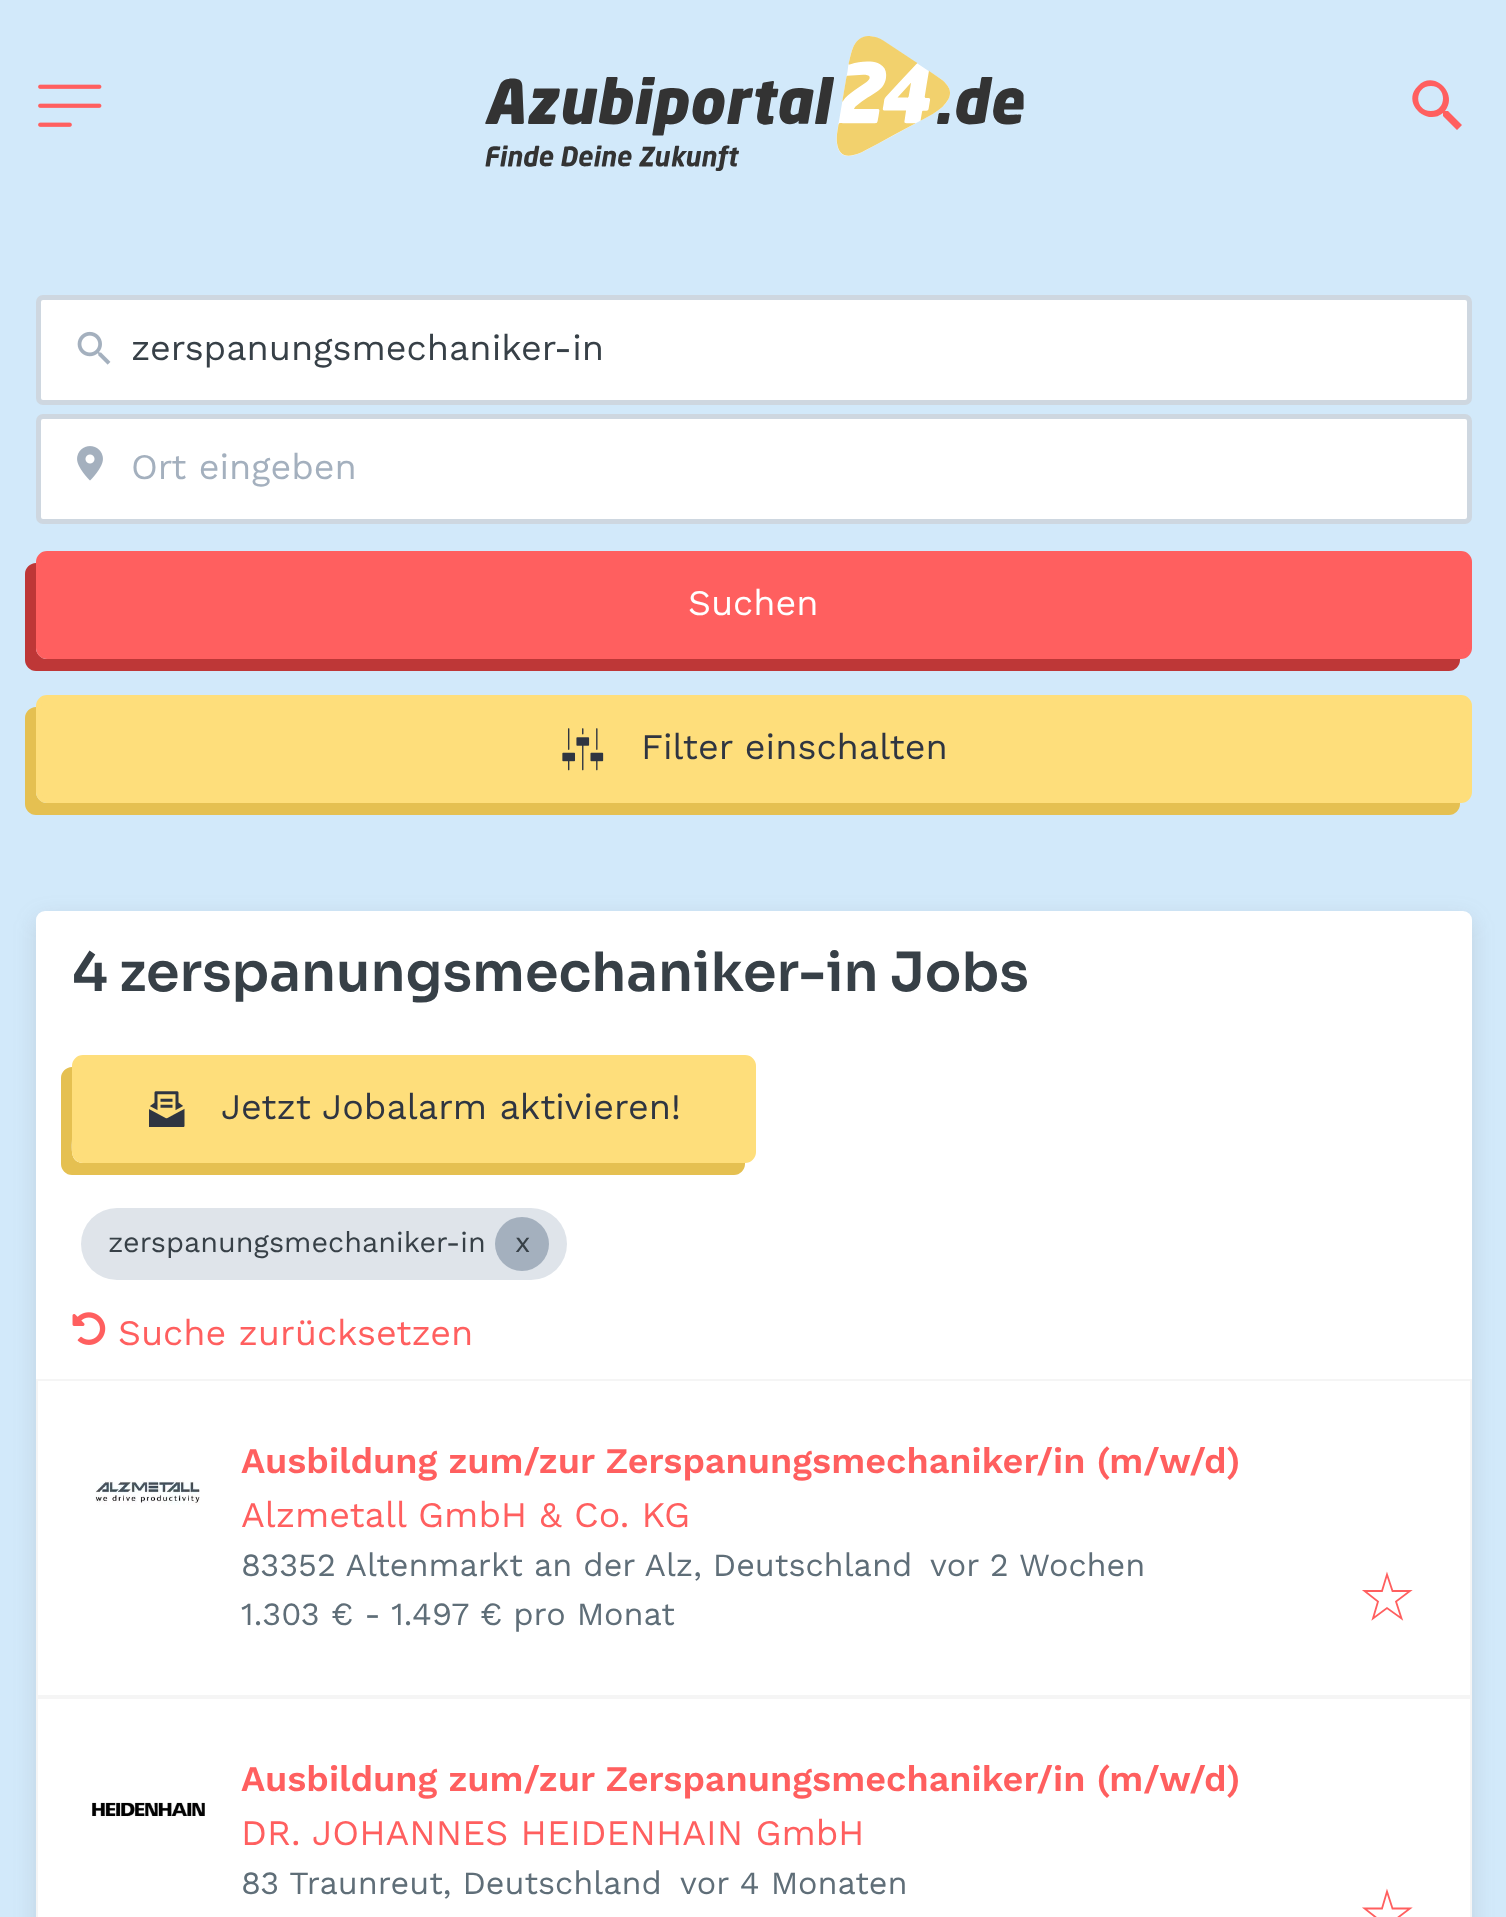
<svg xmlns="http://www.w3.org/2000/svg" width="1506" height="1917">
<style>
.a{font:36px Work Sans;fill:#374047}
.b{font:36px Work Sans;fill:#a4b0be}
.c{font:36px Work Sans;fill:#fff}
.d{font:36px Work Sans;fill:#2f3541}
.e{font:600 54px Sora;fill:#374047}
.f{font:28.75px Work Sans;fill:#374047}
.g{font:36px Work Sans;fill:#ff5f5f}
.h{font:600 36px Work Sans;fill:#ff5f5f}
.i{font:32.4px Work Sans;fill:#5f6e78}
</style>
<rect width="100%" height="100%" fill="#d2e9fa"/>
<image href="1.png" x="38" y="84" width="64" height="43"/>
<image href="2.png" x="485" y="36" width="539" height="135"/>
<path fill="#ff5f5f" d="M1448 111h-3c14-17-11-42-27-25c-17 16 8 41 25 27v3l14 14l5-5zm-17 0c-17 0-17-25 0-25c16 0 16 25 0 25z"/>
<rect fill="#fff" stroke="#ced7e0" stroke-width="5" x="38.5" y="297.5" width="1431" height="105" rx="4.5"/>
<image href="3.png" x="77" y="331" width="34" height="34"/>
<rect fill="#fff" stroke="#ced7e0" stroke-width="5" x="38.5" y="416.5" width="1431" height="105" rx="4.5"/>
<image href="4.png" x="77" y="446" width="26" height="35"/>
<path fill="#be3737" d="M36 563c-6 0-11 5-11 11v86c0 6 5 11 11 11h1413c6 0 11-5 11-11v-1h-1413c-6 0-11-5-11-11z"/>
<rect fill="#ff5f5f" stroke="#ff5f5f" stroke-width="5" x="38.5" y="553.5" width="1431" height="103" rx="8.5"/>
<path fill="#e5c051" d="M36 707c-6 0-11 5-11 11v86c0 6 5 11 11 11h1413c6 0 11-5 11-11v-1h-1413c-6 0-11-5-11-11z"/>
<rect fill="#fede7b" stroke="#fede7b" stroke-width="5" x="38.5" y="697.5" width="1431" height="103" rx="8.5"/>
<image href="5.png" x="562" y="728" width="42" height="43"/>
<rect fill="#7070702e" filter="blur(11px)" x="36" y="918" width="1436" height="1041" rx="9"/>
<rect fill="#fff" x="36" y="911" width="1436" height="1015" rx="9"/>
<path fill="#e5c051" d="M72 1067c-6 0-11 5-11 11v86c0 6 5 11 11 11h662c6 0 11-5 11-11v-1h-662c-14 0-11-16-11-25z"/>
<rect fill="#fede7b" stroke="#fede7b" stroke-width="5" x="74.5" y="1057.5" width="679" height="103" rx="8.5"/>
<image href="6.png" x="149" y="1091" width="36" height="36"/>
<rect fill="#dfe4ea" x="81" y="1208" width="486" height="72" rx="36"/>
<circle fill="#a4b0be" cx="522" cy="1244" r="27"/>
<image href="7.png" x="72" y="1312" width="34" height="33"/>
<path fill="none" stroke="#f5f5f5" stroke-width="2" d="M37 1380h1434v316H37z"/>
<image href="8.png" x="95" y="1480" width="105" height="25"/>
<path fill="none" stroke="#ff5f5f" stroke-width="1.8" stroke-linecap="square" d="M1387 1574.5l5.5 16.5h17.5l-14 10.5l5.5 17l-14.5-10.5l-14 10.5l5-17l-13.5-10.5h17.5z"/>
<path fill="none" stroke="#f5f5f5" stroke-width="2" d="M37 1698h1434v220H37z"/>
<image href="9.png" x="92" y="1802" width="113" height="16"/>
<path fill="none" stroke="#ff5f5f" stroke-width="1.8" stroke-linecap="square" d="M1387 1891.5l5.5 17h17.5l-14 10.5l5.5 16.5l-14.5-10l-14 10l5-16.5l-13.5-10.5h17.5z"/>
<text class="a" x="131" y="360">zerspanungsmechaniker-in</text>
<text class="b" x="131" y="479">Ort eingeben</text>
<text class="c" x="688" y="615">Suchen</text>
<text class="d" x="641" y="759">Filter einschalten</text>
<text class="e" x="72" y="991">4 zerspanungsmechaniker-in Jobs</text>
<text class="d" x="221" y="1119">Jetzt Jobalarm aktivieren!</text>
<text class="f" x="108" y="1252">zerspanungsmechaniker-in</text>
<text class="f" x="515" y="1252">x</text>
<text class="g" x="118" y="1345">Suche zurücksetzen</text>
<text class="h" x="241" y="1473">Ausbildung zum/zur Zerspanungsmechaniker/in (m/w/d)</text>
<text class="g" x="241" y="1527">Alzmetall GmbH &amp; Co. KG</text>
<text class="i" x="241" y="1576">83352 Altenmarkt an der Alz, Deutschland</text>
<text class="i" x="930" y="1576">vor 2 Wochen</text>
<text class="i" x="241" y="1625">1.303 € - 1.497 € pro Monat</text>
<text class="h" x="241" y="1791">Ausbildung zum/zur Zerspanungsmechaniker/in (m/w/d)</text>
<text class="g" x="241" y="1845">DR. JOHANNES HEIDENHAIN GmbH</text>
<text class="i" x="241" y="1894">83 Traunreut, Deutschland</text>
<text class="i" x="680" y="1894">vor 4 Monaten</text>
</svg>
